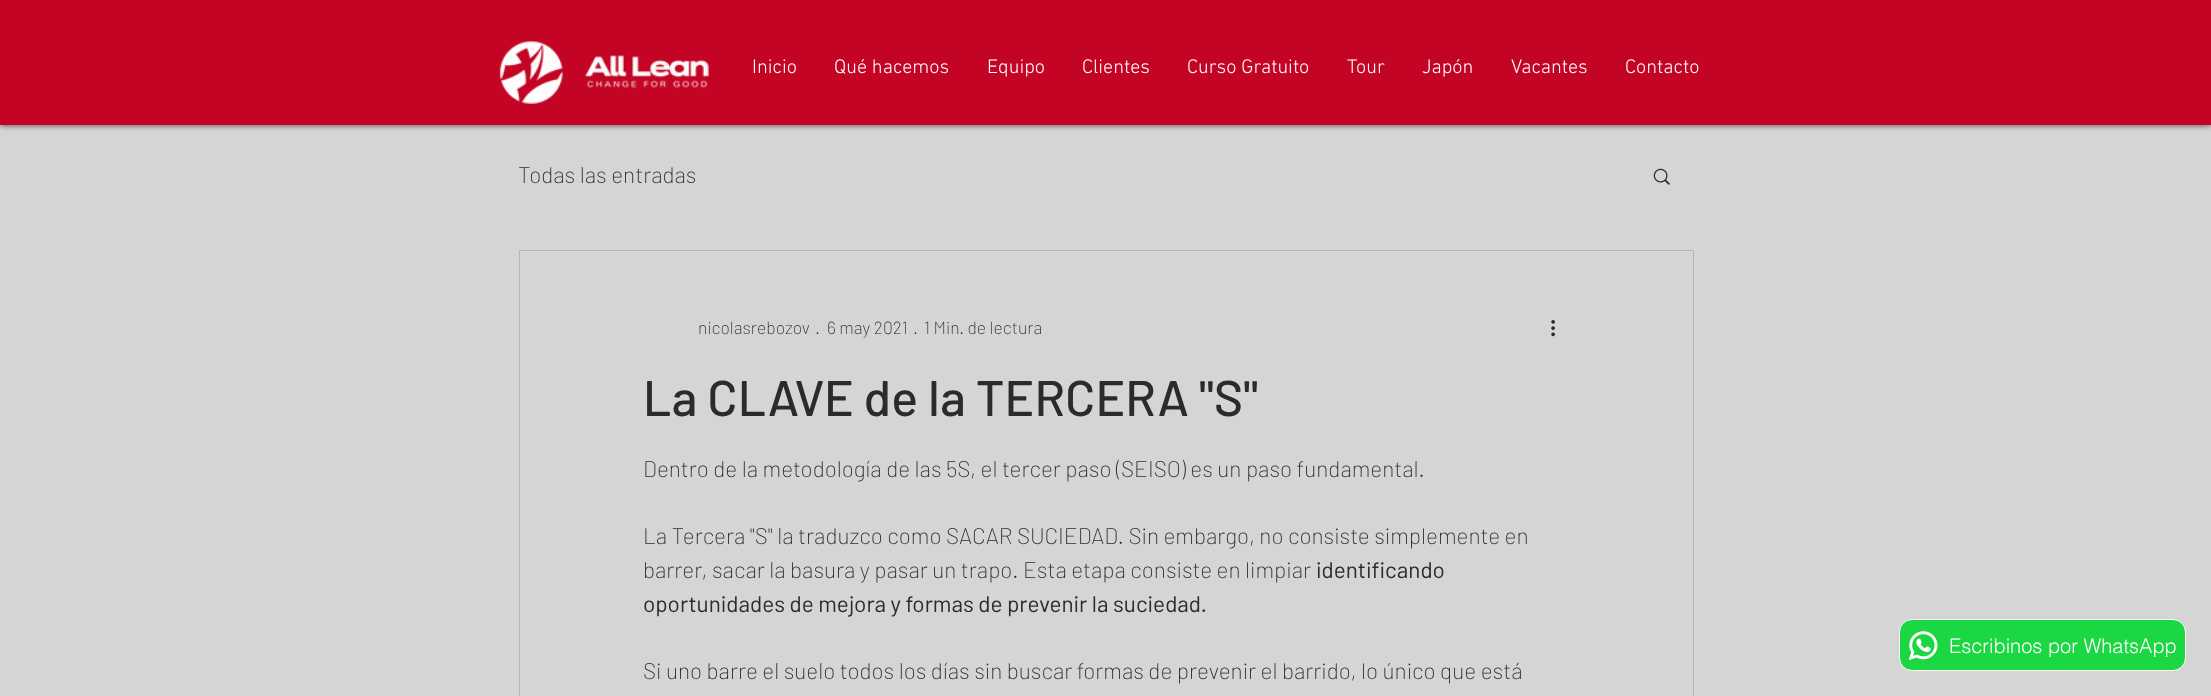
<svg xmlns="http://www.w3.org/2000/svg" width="2211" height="696">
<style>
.a{font:300 20px 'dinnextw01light';fill:#fff}
.b{font:200 22.5px Barlow;fill:#2b2b2b}
.c{font:200 17.5px Barlow;fill:#2b2b2b}
.d{font:500 50px Barlow;fill:#2b2b2b}
.e{font:22.5px Barlow;fill:#2b2b2b}
.f{font:300 20px helvetica;fill:#fff}
</style>
<rect width="100%" height="100%" fill="#d5d5d5"/>
<path fill="#000000b3" filter="blur(3px)" d="M0 0h2211v125H0z"/>
<path fill="#c40424" d="M0 0h2211v125H0z"/>
<image href="1.png" x="499" y="41" width="210" height="63"/>
<image href="2.png" x="1653" y="168" width="17" height="17"/>
<path fill="none" stroke="#b5b5b5" d="M519.5 250.5h1174v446H519.5z"/>
<image href="3.png" x="1551" y="320" width="4" height="17"/>
<rect fill="#1bd741" stroke="#fff" x="1899.5" y="619.5" width="286" height="51" rx="12.5"/>
<image href="4.png" x="1909" y="631" width="29" height="29"/>
<text class="a" x="752" y="73">Inicio</text>
<text class="a" x="834" y="73">Qué hacemos</text>
<text class="a" x="987" y="73">Equipo</text>
<text class="a" x="1082" y="73">Clientes</text>
<text class="a" x="1187" y="73">Curso Gratuito</text>
<text class="a" x="1347" y="73">Tour</text>
<text class="a" x="1422" y="73">Japón</text>
<text class="a" x="1511" y="73">Vacantes</text>
<text class="a" x="1625" y="73">Contacto</text>
<text class="b" x="518" y="183">Todas las entradas</text>
<text class="c" x="698" y="334">nicolasrebozov</text>
<text class="c" x="817" y="334">·</text>
<text class="c" x="827" y="334">6 may 2021</text>
<text class="c" x="915" y="334">·</text>
<text class="c" x="924" y="334">1 Min. de lectura</text>
<text class="d" x="643" y="416">La CLAVE de la TERCERA "S"</text>
<text class="b" x="643" y="477">Dentro de la metodología de las 5S, el tercer paso (SEISO) es un paso fundamental.</text>
<text class="b" x="643" y="544">La Tercera "S" la traduzco como SACAR SUCIEDAD. Sin embargo, no consiste simplemente en</text>
<text class="b" x="643" y="578">barrer, sacar la basura y pasar un trapo. Esta etapa consiste en limpiar</text>
<text class="e" x="1316" y="578">identificando</text>
<text class="e" x="643" y="612">oportunidades de mejora y formas de prevenir la suciedad.</text>
<text class="b" x="643" y="679">Si uno barre el suelo todos los días sin buscar formas de prevenir el barrido, lo único que está</text>
<text class="f" x="1949" y="653">Escribinos por WhatsApp</text>
</svg>
